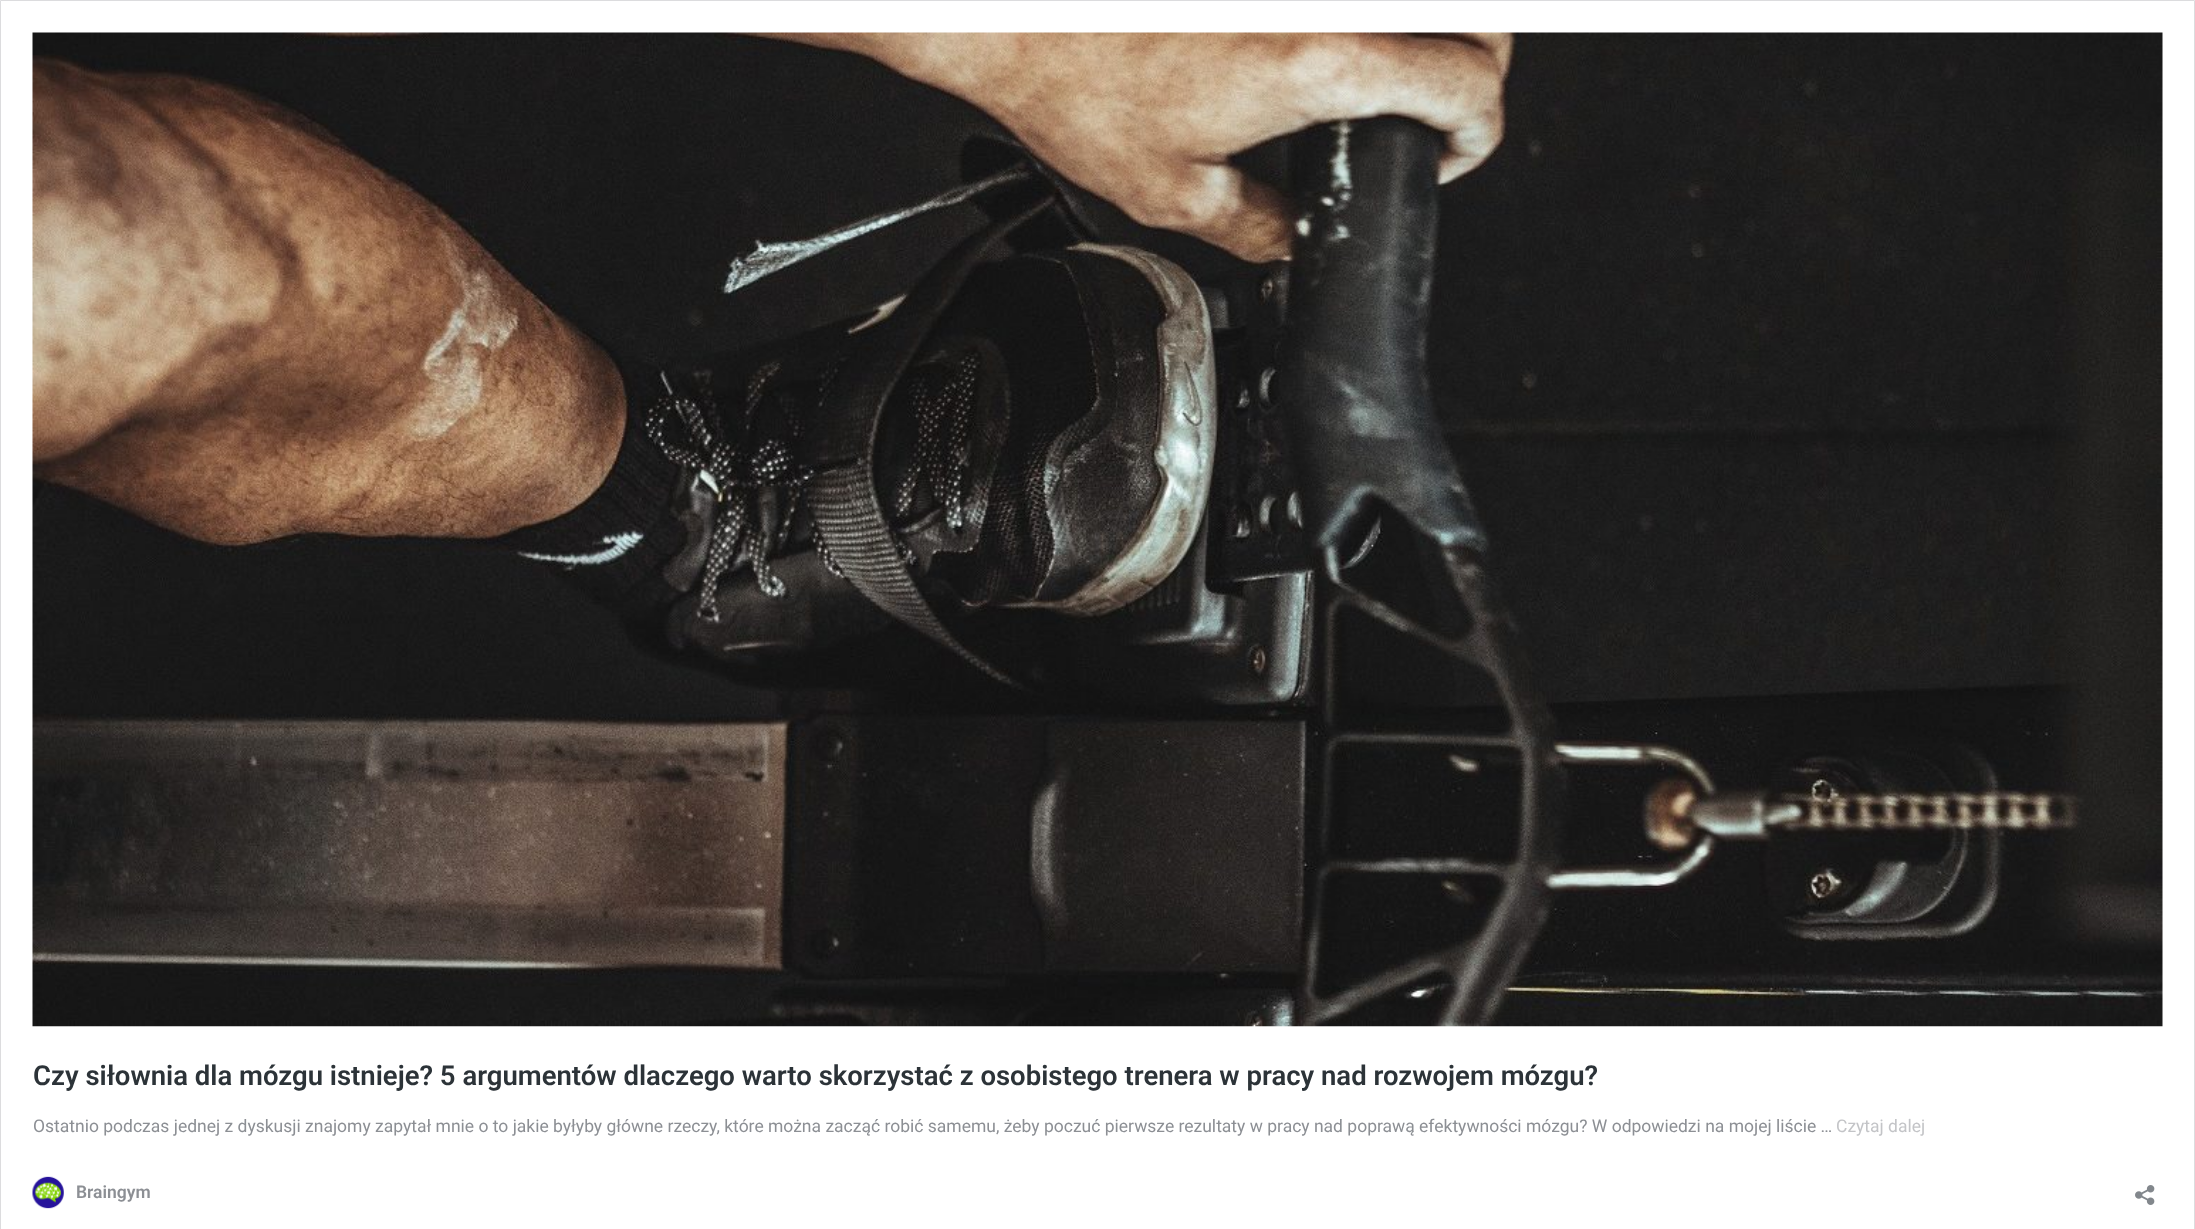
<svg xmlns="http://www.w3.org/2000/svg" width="2195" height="1229">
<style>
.a{font:600 27.5px Roboto;fill:#2c3338}
.b{font:17.5px Roboto;fill:#8c8f94}
.c{font:17.5px Roboto;fill:#c3c4c7}
.d{font:600 17.5px Roboto;fill:#8c8f94}
</style>
<rect width="100%" height="100%" fill="#fff"/>
<path fill="none" stroke="#dcdcde" d="M0.5 0.5h2194v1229H0.5z"/>
<image href="1.png" x="32" y="32" width="2131" height="995"/>
<image href="2.png" x="32" y="1176" width="32" height="33"/>
<image href="3.png" x="2135" y="1185" width="20" height="20"/>
<text class="a" x="33" y="1085">Czy siłownia dla mózgu istnieje? 5 argumentów dlaczego warto skorzystać z osobistego trenera w pracy nad rozwojem mózgu?</text>
<text class="b" x="33" y="1132">Ostatnio podczas jednej z dyskusji znajomy zapytał mnie o to jakie byłyby główne rzeczy, które można zacząć robić samemu, żeby poczuć pierwsze rezultaty w pracy nad poprawą efektywności mózgu? W odpowiedzi na mojej liście …</text>
<text class="c" x="1836" y="1132">Czytaj dalej</text>
<text class="d" x="76" y="1198">Braingym</text>
</svg>
